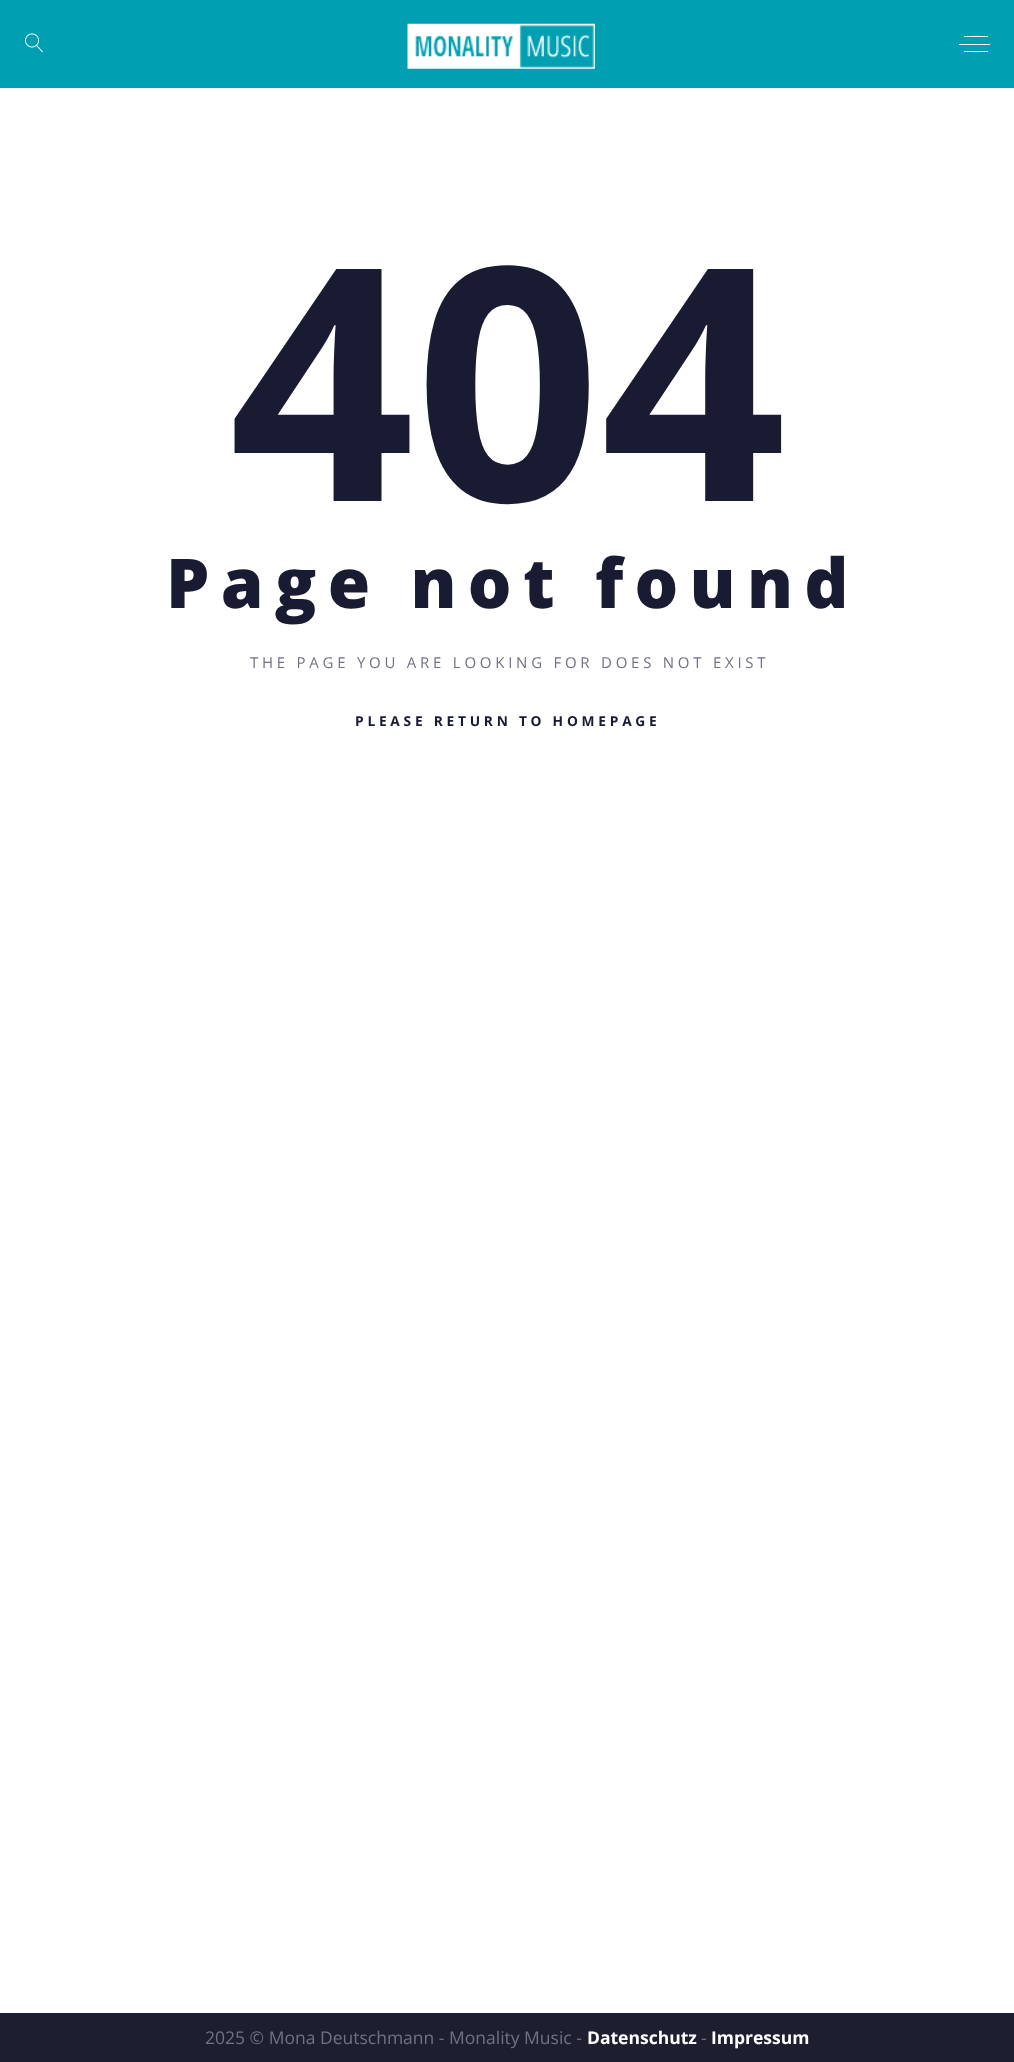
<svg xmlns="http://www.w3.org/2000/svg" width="1014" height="2062">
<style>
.a{font:bold 325px Open Sans;fill:#181b31}
.b{font:800 68.75px Open Sans;letter-spacing:11.25px;fill:#181b31}
.c{font:15px Open Sans;letter-spacing:3.75px;fill:#707281}
.d{font:bold 13.75px Open Sans;letter-spacing:3.75px;fill:#181b31}
.e{font:17.5px Open Sans;fill:#707281}
.f{font:bold 17.5px Open Sans;fill:#fff}
</style>
<rect width="100%" height="100%" fill="#fff"/>
<path fill="#00a0b2" d="M0 0h1014v88H0z"/>
<image href="1.png" x="25" y="33" width="18" height="20"/>
<image href="2.png" x="407" y="23" width="188" height="46"/>
<path fill="#fff" d="M964 36h24v1H964z"/>
<path fill="#fff" d="M959 44h31v1H959z"/>
<path fill="#fff" d="M964 51h24v1H964z"/>
<path fill="#1d1f31" d="M0 2013h1014v49H0z"/>
<text class="a" x="229" y="501">404</text>
<text class="b" x="166" y="608">Page not found</text>
<text class="c" x="250" y="668">THE PAGE YOU ARE LOOKING FOR DOES NOT EXIST</text>
<text class="d" x="355" y="726">PLEASE RETURN TO HOMEPAGE</text>
<text class="e" x="205" y="2044">2025 © Mona Deutschmann - Monality Music -</text>
<text class="f" x="587" y="2044">Datenschutz</text>
<text class="e" x="701" y="2044">-</text>
<text class="f" x="711" y="2044">Impressum</text>
</svg>
